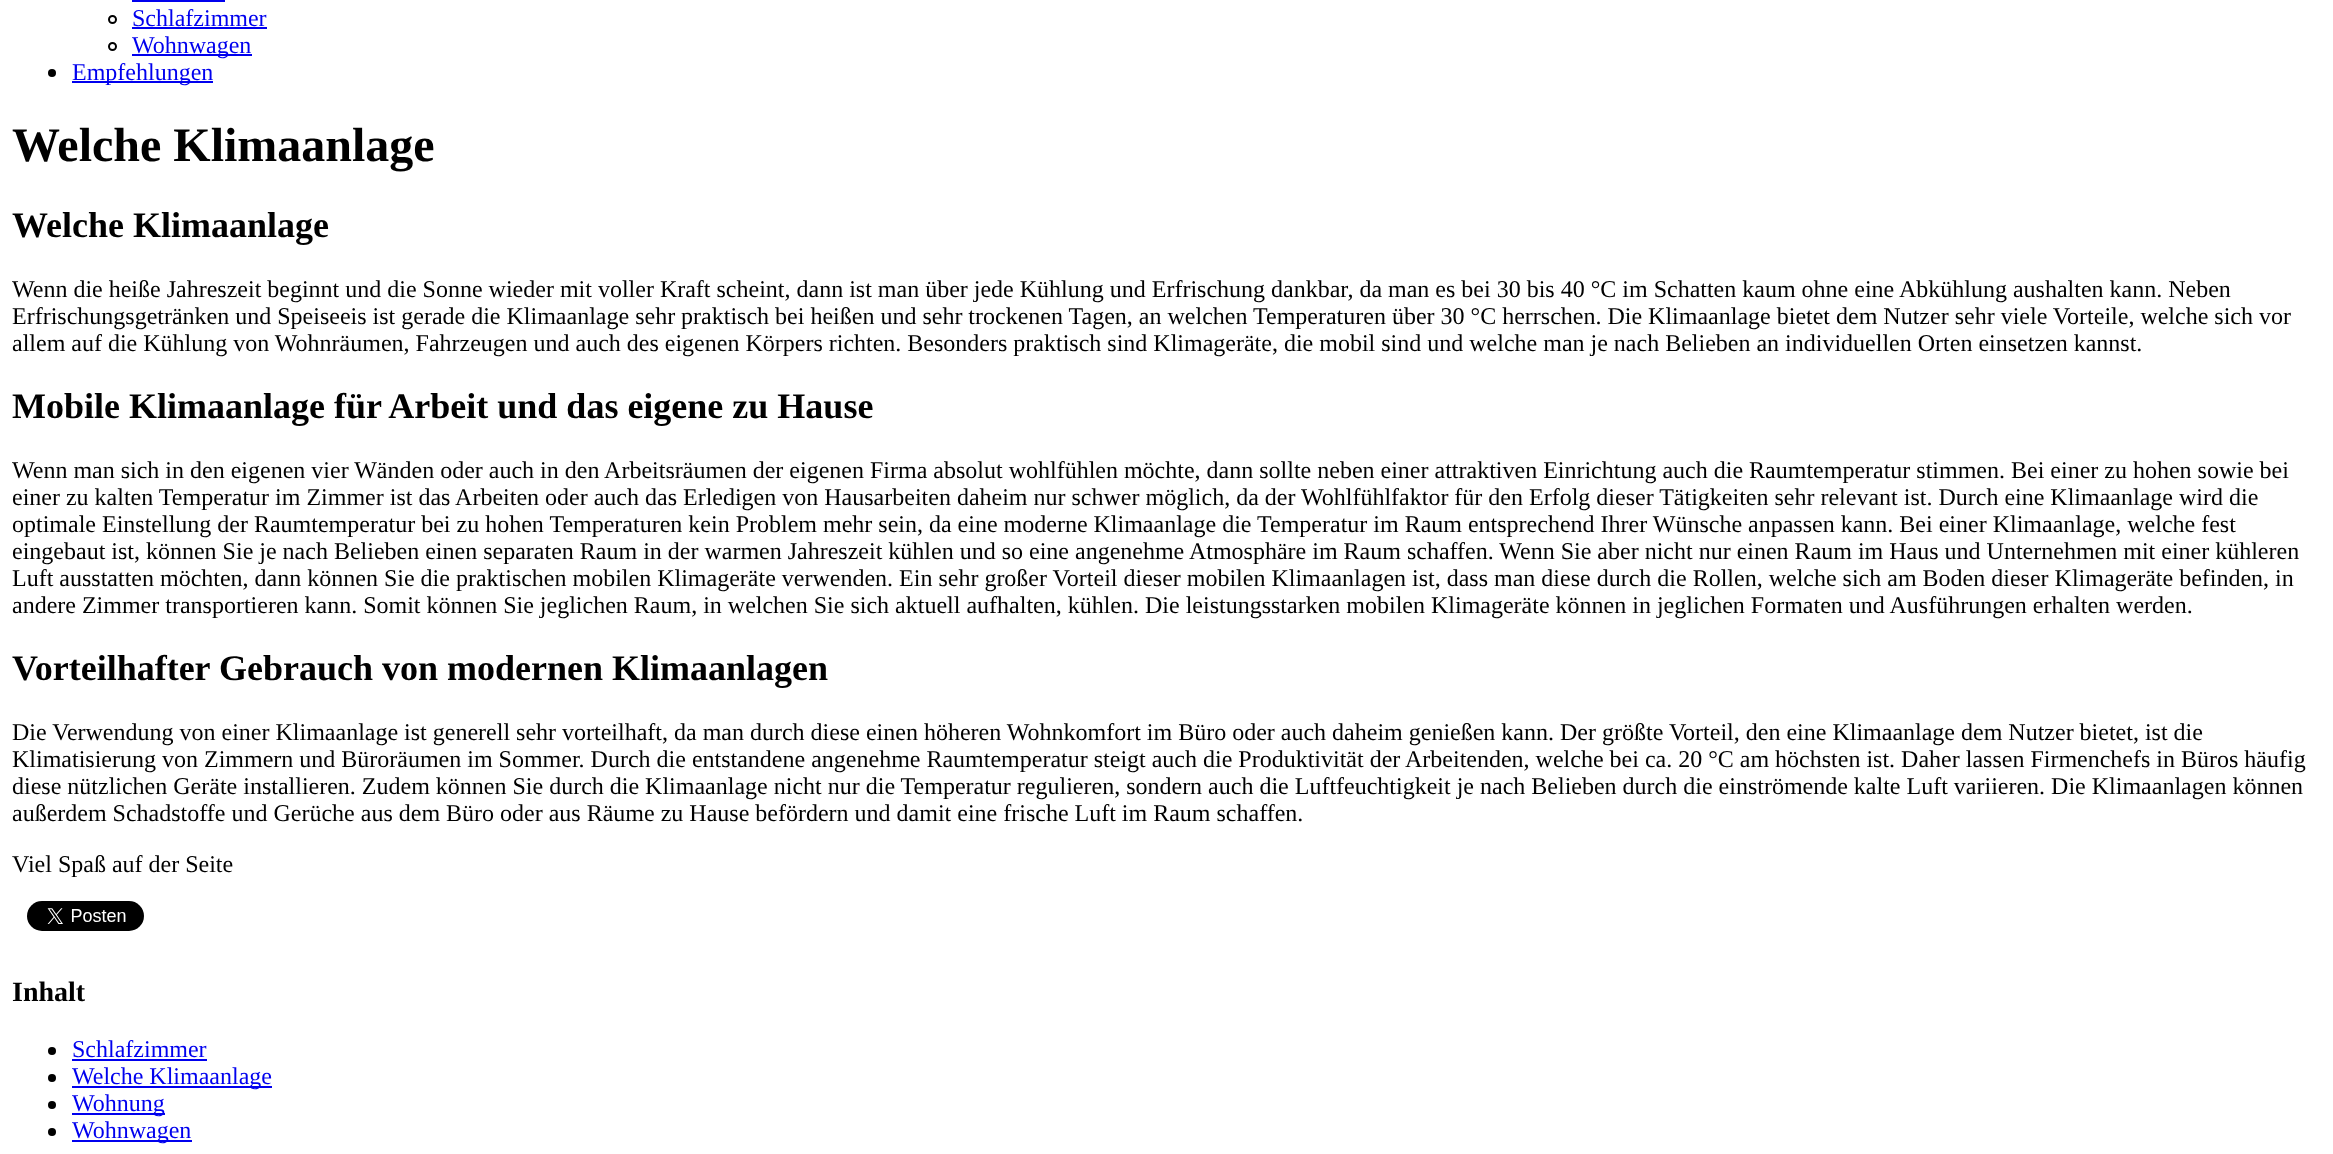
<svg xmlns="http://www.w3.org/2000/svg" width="2333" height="1154">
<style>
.a{font:24px Liberation Serif;fill:#00e}
.b{font:bold 48px Liberation Serif;fill:#000}
.c{font:bold 36px Liberation Serif;fill:#000}
.d{font:24px Liberation Serif;fill:#000}
.e{font:bold 28px Liberation Serif;fill:#000}
</style>
<rect width="100%" height="100%" fill="#fff"/>
<path fill="#00e" d="M132 0h93v2H132z"/>
<circle fill="none" stroke="#000" stroke-width="2" cx="112.5" cy="19.5" r="3.5"/>
<path fill="#00e" d="M132 27h135v2H132z"/>
<circle fill="none" stroke="#000" stroke-width="2" cx="112.5" cy="46.5" r="3.5"/>
<path fill="#00e" d="M132 54h120v2H132z"/>
<circle fill="#000" cx="52" cy="73" r="4"/>
<path fill="#00e" d="M72 81h141v2H72z"/>
<image href="1.png" x="27" y="901" width="117" height="30"/>
<circle fill="#000" cx="52" cy="1051" r="4"/>
<path fill="#00e" d="M72 1059h135v2H72z"/>
<circle fill="#000" cx="52" cy="1078" r="4"/>
<path fill="#00e" d="M72 1086h200v2H72z"/>
<circle fill="#000" cx="52" cy="1105" r="4"/>
<path fill="#00e" d="M72 1113h93v2H72z"/>
<circle fill="#000" cx="52" cy="1132" r="4"/>
<path fill="#00e" d="M72 1140h120v2H72z"/>
<text class="a" x="132" y="26">Schlafzimmer</text>
<text class="a" x="132" y="53">Wohnwagen</text>
<text class="a" x="72" y="80">Empfehlungen</text>
<text class="b" x="12" y="161">Welche Klimaanlage</text>
<text class="c" x="12" y="237">Welche Klimaanlage</text>
<text class="d" x="12" y="297">Wenn die heiße Jahreszeit beginnt und die Sonne wieder mit voller Kraft scheint, dann ist man über jede Kühlung und Erfrischung dankbar, da man es bei 30 bis 40 °C im Schatten kaum ohne eine Abkühlung aushalten kann. Neben</text>
<text class="d" x="12" y="324">Erfrischungsgetränken und Speiseeis ist gerade die Klimaanlage sehr praktisch bei heißen und sehr trockenen Tagen, an welchen Temperaturen über 30 °C herrschen. Die Klimaanlage bietet dem Nutzer sehr viele Vorteile, welche sich vor</text>
<text class="d" x="12" y="351">allem auf die Kühlung von Wohnräumen, Fahrzeugen und auch des eigenen Körpers richten. Besonders praktisch sind Klimageräte, die mobil sind und welche man je nach Belieben an individuellen Orten einsetzen kannst.</text>
<text class="c" x="12" y="418">Mobile Klimaanlage für Arbeit und das eigene zu Hause</text>
<text class="d" x="12" y="478">Wenn man sich in den eigenen vier Wänden oder auch in den Arbeitsräumen der eigenen Firma absolut wohlfühlen möchte, dann sollte neben einer attraktiven Einrichtung auch die Raumtemperatur stimmen. Bei einer zu hohen sowie bei</text>
<text class="d" x="12" y="505">einer zu kalten Temperatur im Zimmer ist das Arbeiten oder auch das Erledigen von Hausarbeiten daheim nur schwer möglich, da der Wohlfühlfaktor für den Erfolg dieser Tätigkeiten sehr relevant ist. Durch eine Klimaanlage wird die</text>
<text class="d" x="12" y="532">optimale Einstellung der Raumtemperatur bei zu hohen Temperaturen kein Problem mehr sein, da eine moderne Klimaanlage die Temperatur im Raum entsprechend Ihrer Wünsche anpassen kann. Bei einer Klimaanlage, welche fest</text>
<text class="d" x="12" y="559">eingebaut ist, können Sie je nach Belieben einen separaten Raum in der warmen Jahreszeit kühlen und so eine angenehme Atmosphäre im Raum schaffen. Wenn Sie aber nicht nur einen Raum im Haus und Unternehmen mit einer kühleren</text>
<text class="d" x="12" y="586">Luft ausstatten möchten, dann können Sie die praktischen mobilen Klimageräte verwenden. Ein sehr großer Vorteil dieser mobilen Klimaanlagen ist, dass man diese durch die Rollen, welche sich am Boden dieser Klimageräte befinden, in</text>
<text class="d" x="12" y="613">andere Zimmer transportieren kann. Somit können Sie jeglichen Raum, in welchen Sie sich aktuell aufhalten, kühlen. Die leistungsstarken mobilen Klimageräte können in jeglichen Formaten und Ausführungen erhalten werden.</text>
<text class="c" x="12" y="680">Vorteilhafter Gebrauch von modernen Klimaanlagen</text>
<text class="d" x="12" y="740">Die Verwendung von einer Klimaanlage ist generell sehr vorteilhaft, da man durch diese einen höheren Wohnkomfort im Büro oder auch daheim genießen kann. Der größte Vorteil, den eine Klimaanlage dem Nutzer bietet, ist die</text>
<text class="d" x="12" y="767">Klimatisierung von Zimmern und Büroräumen im Sommer. Durch die entstandene angenehme Raumtemperatur steigt auch die Produktivität der Arbeitenden, welche bei ca. 20 °C am höchsten ist. Daher lassen Firmenchefs in Büros häufig</text>
<text class="d" x="12" y="794">diese nützlichen Geräte installieren. Zudem können Sie durch die Klimaanlage nicht nur die Temperatur regulieren, sondern auch die Luftfeuchtigkeit je nach Belieben durch die einströmende kalte Luft variieren. Die Klimaanlagen können</text>
<text class="d" x="12" y="821">außerdem Schadstoffe und Gerüche aus dem Büro oder aus Räume zu Hause befördern und damit eine frische Luft im Raum schaffen.</text>
<text class="d" x="12" y="872">Viel Spaß auf der Seite</text>
<text class="e" x="12" y="1001">Inhalt</text>
<text class="a" x="72" y="1057">Schlafzimmer</text>
<text class="a" x="72" y="1084">Welche Klimaanlage</text>
<text class="a" x="72" y="1111">Wohnung</text>
<text class="a" x="72" y="1138">Wohnwagen</text>
</svg>
